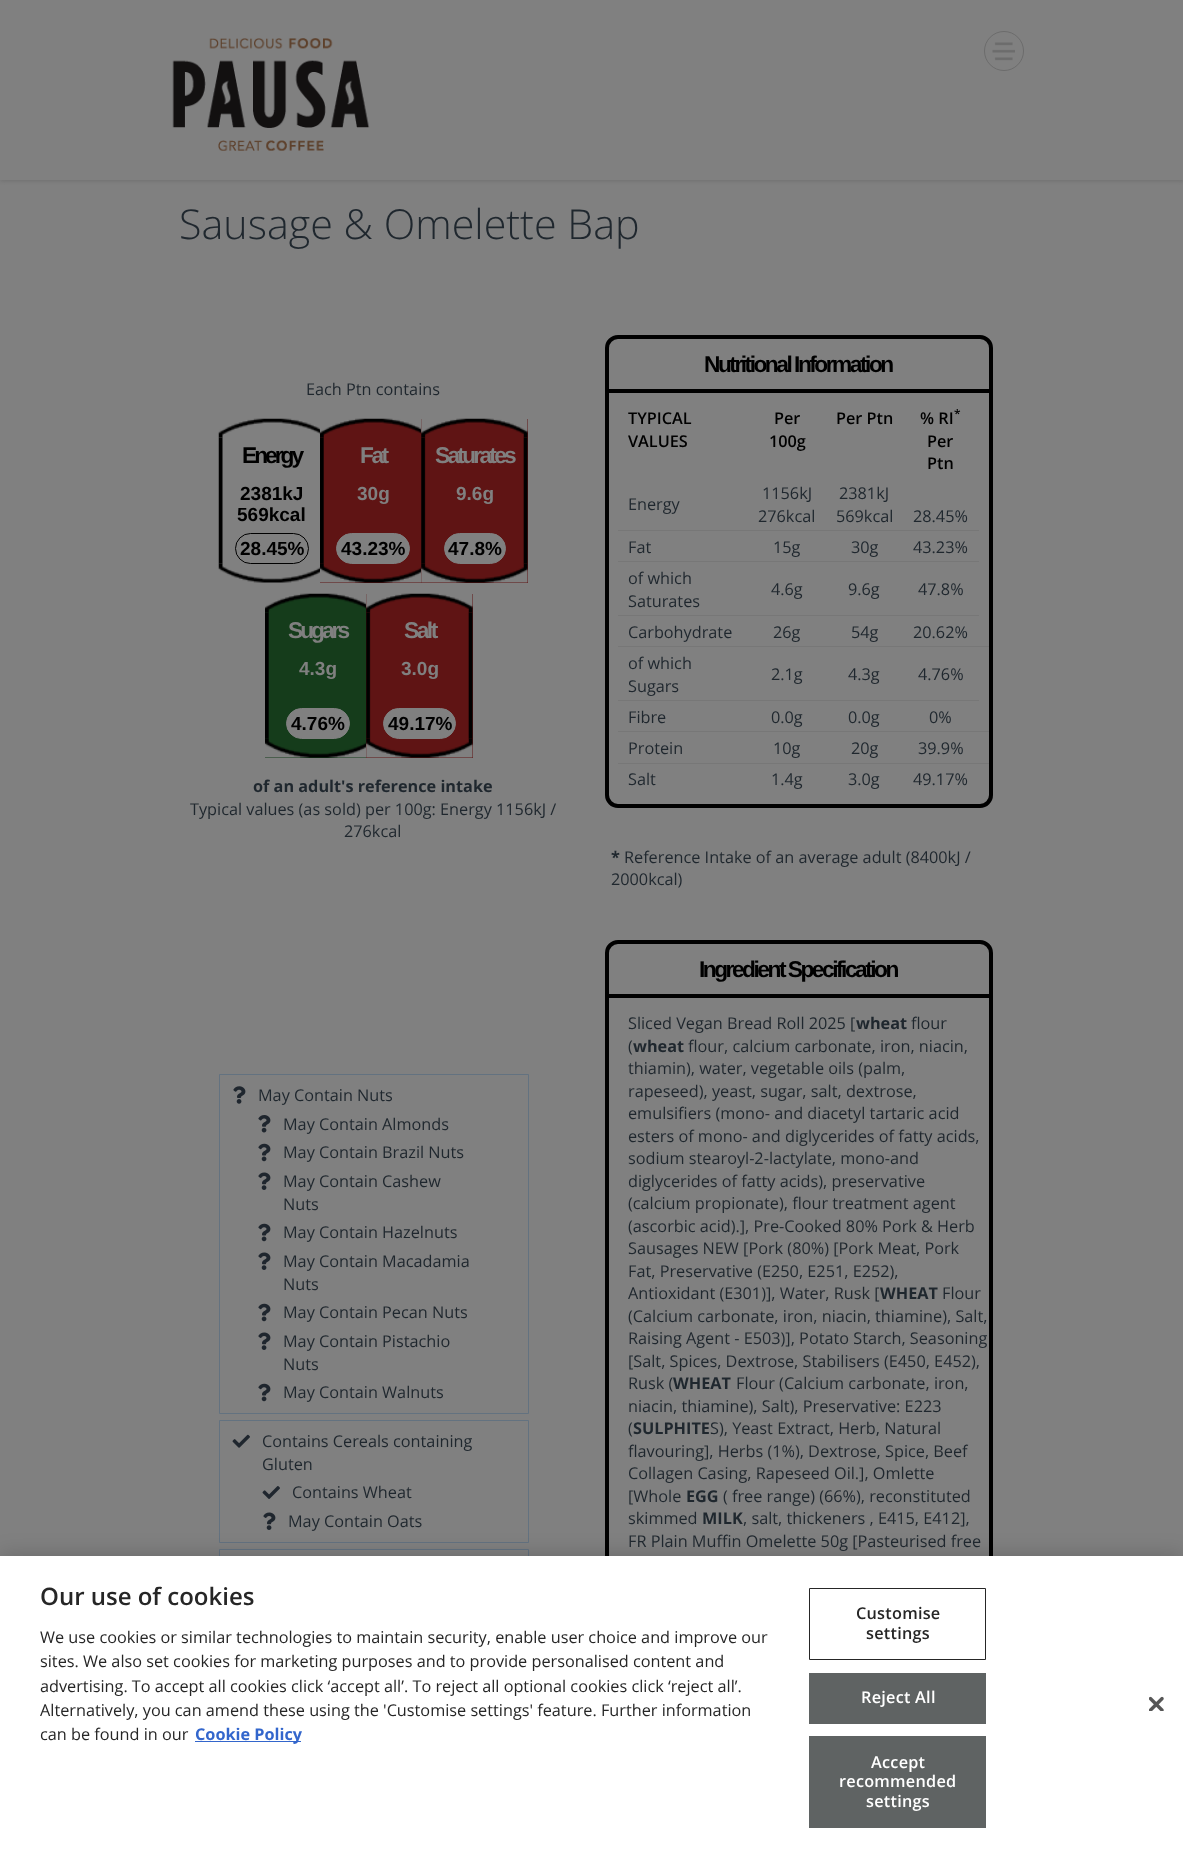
<svg xmlns="http://www.w3.org/2000/svg" width="1183" height="1852">
<style>
.a{font:300 41.25px Open Sans;fill:#1f272e}
.b{font:16.25px Open Sans;fill:#1f272e}
.c{font:bold 22.75px Liberation Sans;letter-spacing:-3px;fill:#000}
.d{font:bold 19px Liberation Sans;fill:#000}
.e{font:bold 22.75px Liberation Sans;letter-spacing:-2.5px;fill:#808080}
.f{font:bold 19px Liberation Sans;fill:#808080}
.g{font:bold 22.75px Liberation Sans;letter-spacing:-2.75px;fill:#808080}
.h{font:bold 22.75px Liberation Sans;letter-spacing:-3px;fill:#808080}
.i{font:bold 16.25px Open Sans;fill:#1f272e}
.j{font:bold 22.75px Liberation Sans;letter-spacing:-2.5px;fill:#000}
.k{font:600 16.25px Open Sans;fill:#000}
.l{font:600 12px Open Sans;fill:#000}
.m{font:600 24px Open Sans;fill:#262626}
.n{font:16.25px Open Sans;fill:#262626}
.o{font:bold 16.25px Open Sans;fill:#36c}
.p{font:600 16.25px Open Sans;letter-spacing:0.25px;fill:#262626}
.q{font:600 16.25px Open Sans;letter-spacing:0.25px;fill:#fff}
</style>
<defs>
<clipPath id="clip1"><path d="M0 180h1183v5H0z"/></clipPath>
</defs>
<rect width="100%" height="100%" fill="#808080"/>
<g clip-path="url(#clip1)">
<path fill="#6f6f6f" filter="blur(2px)" d="M0 1h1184v180H0z"/>
</g>
<image href="1.png" x="172" y="38" width="198" height="113"/>
<image href="2.png" x="992" y="42" width="23" height="19"/>
<circle fill="none" stroke="#6c6c6c" cx="1004" cy="51" r="19.5"/>
<image href="3.png" x="218" y="418" width="107" height="20"/>
<image href="4.png" x="218" y="437" width="5" height="127"/>
<image href="5.png" x="218" y="563" width="102" height="20"/>
<rect fill="none" stroke="#000" x="235.5" y="533.5" width="73" height="30" rx="15"/>
<path fill="#5f1414" d="M320 419h101v164H320z"/>
<image href="6.png" x="320" y="418" width="107" height="20"/>
<image href="7.png" x="320" y="437" width="4" height="127"/>
<image href="8.png" x="320" y="563" width="101" height="20"/>
<rect fill="#808080" stroke="#808080" x="336.5" y="533.5" width="73" height="30" rx="15"/>
<path fill="#5f1414" d="M421 419h107v164H421z"/>
<image href="9.png" x="421" y="418" width="107" height="20"/>
<image href="10.png" x="421" y="437" width="107" height="127"/>
<image href="11.png" x="421" y="563" width="107" height="20"/>
<rect fill="#808080" stroke="#808080" x="444.5" y="533.5" width="61" height="30" rx="15"/>
<path fill="#153c1b" d="M265 594h101v164H265z"/>
<image href="12.png" x="265" y="593" width="107" height="20"/>
<image href="13.png" x="265" y="612" width="4" height="127"/>
<image href="14.png" x="265" y="738" width="101" height="20"/>
<rect fill="#808080" stroke="#808080" x="286.5" y="708.5" width="63" height="30" rx="15"/>
<path fill="#5f1414" d="M366 594h107v164H366z"/>
<image href="9.png" x="366" y="593" width="107" height="20"/>
<image href="10.png" x="366" y="612" width="107" height="127"/>
<image href="11.png" x="366" y="738" width="107" height="20"/>
<rect fill="#808080" stroke="#808080" x="383.5" y="708.5" width="72" height="30" rx="15"/>
<rect fill="none" stroke="#000" stroke-width="4" x="607" y="337" width="384" height="469" rx="11"/>
<path fill="#000" d="M609 389h380v4H609z"/>
<path fill="#777" d="M618 530h361v1H618z"/>
<path fill="#777" d="M618 561h361v1H618z"/>
<path fill="#777" d="M618 615h361v1H618z"/>
<path fill="#777" d="M618 646h371v1H618z"/>
<path fill="#777" d="M618 700h361v1H618z"/>
<path fill="#777" d="M618 731h371v1H618z"/>
<path fill="#777" d="M618 763h371v1H618z"/>
<path fill="none" stroke="#637280" d="M219.5 1074.5h309v339H219.5z"/>
<image href="15.png" x="233" y="1086" width="13" height="18"/>
<image href="16.png" x="258" y="1115" width="13" height="18"/>
<image href="17.png" x="258" y="1143" width="13" height="19"/>
<image href="18.png" x="258" y="1172" width="13" height="18"/>
<image href="17.png" x="258" y="1223" width="13" height="19"/>
<image href="18.png" x="258" y="1252" width="13" height="18"/>
<image href="17.png" x="258" y="1303" width="13" height="19"/>
<image href="18.png" x="258" y="1332" width="13" height="18"/>
<image href="17.png" x="258" y="1383" width="13" height="19"/>
<path fill="none" stroke="#637280" d="M219.5 1420.5h309v122H219.5z"/>
<image href="19.png" x="232" y="1434" width="18" height="14"/>
<image href="20.png" x="262" y="1486" width="18" height="13"/>
<image href="18.png" x="263" y="1512" width="13" height="18"/>
<path fill="none" stroke="#637280" d="M219.5 1549.5h309v41H219.5z"/>
<rect fill="none" stroke="#000" stroke-width="4" x="607" y="942" width="384" height="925" rx="11"/>
<path fill="#000" d="M609 994h380v4H609z"/>
<path fill="#00000033" filter="blur(11px)" d="M0 1556h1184v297H0z"/>
<path fill="#fff" d="M0 1556h1183v296H0z"/>
<path fill="#36c" d="M195 1741h106v1H195z"/>
<path fill="none" stroke="#262626" d="M809.5 1588.5h176v71H809.5z"/>
<path fill="#5f6363" d="M809 1673h177v51H809z"/>
<path fill="#5f6363" d="M809 1736h177v92H809z"/>
<image href="21.png" x="1149" y="1696" width="15" height="15"/>
<text class="a" x="179" y="239">Sausage &amp; Omelette Bap</text>
<text class="b" x="306" y="395">Each Ptn contains</text>
<text class="c" x="242" y="463">Energy</text>
<text class="d" x="240" y="500">2381kJ</text>
<text class="d" x="237" y="521">569kcal</text>
<text class="d" x="240" y="555">28.45%</text>
<text class="e" x="360" y="463">Fat</text>
<text class="f" x="357" y="500">30g</text>
<text class="d" x="341" y="555">43.23%</text>
<text class="g" x="435" y="463">Saturates</text>
<text class="f" x="456" y="500">9.6g</text>
<text class="d" x="448" y="555">47.8%</text>
<text class="h" x="288" y="638">Sugars</text>
<text class="f" x="299" y="675">4.3g</text>
<text class="d" x="291" y="730">4.76%</text>
<text class="e" x="404" y="638">Salt</text>
<text class="f" x="401" y="675">3.0g</text>
<text class="d" x="388" y="730">49.17%</text>
<text class="i" x="253" y="792">of an adult's reference intake</text>
<text class="b" x="190" y="815">Typical values (as sold) per 100g: Energy 1156kJ /</text>
<text class="b" x="344" y="837">276kcal</text>
<text class="j" x="704" y="372">Nutritional Information</text>
<text class="k" x="628" y="424">TYPICAL</text>
<text class="k" x="628" y="447">VALUES</text>
<text class="k" x="774" y="424">Per</text>
<text class="k" x="769" y="447">100g</text>
<text class="k" x="836" y="424">Per Ptn</text>
<text class="k" x="920" y="424">% RI</text>
<text class="l" x="954" y="418">*</text>
<text class="k" x="927" y="447">Per</text>
<text class="k" x="927" y="469">Ptn</text>
<text class="b" x="628" y="510">Energy</text>
<text class="b" x="762" y="499">1156kJ</text>
<text class="b" x="758" y="522">276kcal</text>
<text class="b" x="839" y="499">2381kJ</text>
<text class="b" x="836" y="522">569kcal</text>
<text class="b" x="913" y="522">28.45%</text>
<text class="b" x="628" y="553">Fat</text>
<text class="b" x="773" y="553">15g</text>
<text class="b" x="851" y="553">30g</text>
<text class="b" x="913" y="553">43.23%</text>
<text class="b" x="628" y="584">of which</text>
<text class="b" x="628" y="607">Saturates</text>
<text class="b" x="771" y="595">4.6g</text>
<text class="b" x="848" y="595">9.6g</text>
<text class="b" x="918" y="595">47.8%</text>
<text class="b" x="628" y="638">Carbohydrate</text>
<text class="b" x="773" y="638">26g</text>
<text class="b" x="851" y="638">54g</text>
<text class="b" x="913" y="638">20.62%</text>
<text class="b" x="628" y="669">of which</text>
<text class="b" x="628" y="692">Sugars</text>
<text class="b" x="771" y="680">2.1g</text>
<text class="b" x="848" y="680">4.3g</text>
<text class="b" x="918" y="680">4.76%</text>
<text class="b" x="628" y="723">Fibre</text>
<text class="b" x="771" y="723">0.0g</text>
<text class="b" x="848" y="723">0.0g</text>
<text class="b" x="929" y="723">0%</text>
<text class="b" x="628" y="754">Protein</text>
<text class="b" x="773" y="754">10g</text>
<text class="b" x="851" y="754">20g</text>
<text class="b" x="918" y="754">39.9%</text>
<text class="b" x="628" y="785">Salt</text>
<text class="b" x="771" y="785">1.4g</text>
<text class="b" x="848" y="785">3.0g</text>
<text class="b" x="913" y="785">49.17%</text>
<text class="i" x="611" y="863">*</text>
<text class="b" x="624" y="863">Reference Intake of an average adult (8400kJ /</text>
<text class="b" x="611" y="885">2000kcal)</text>
<text class="b" x="258" y="1101">May Contain Nuts</text>
<text class="b" x="283" y="1130">May Contain Almonds</text>
<text class="b" x="283" y="1158">May Contain Brazil Nuts</text>
<text class="b" x="283" y="1187">May Contain Cashew</text>
<text class="b" x="283" y="1210">Nuts</text>
<text class="b" x="283" y="1238">May Contain Hazelnuts</text>
<text class="b" x="283" y="1267">May Contain Macadamia</text>
<text class="b" x="283" y="1290">Nuts</text>
<text class="b" x="283" y="1318">May Contain Pecan Nuts</text>
<text class="b" x="283" y="1347">May Contain Pistachio</text>
<text class="b" x="283" y="1370">Nuts</text>
<text class="b" x="283" y="1398">May Contain Walnuts</text>
<text class="b" x="262" y="1447">Contains Cereals containing</text>
<text class="b" x="262" y="1470">Gluten</text>
<text class="b" x="292" y="1498">Contains Wheat</text>
<text class="b" x="288" y="1527">May Contain Oats</text>
<text class="j" x="699" y="977">Ingredient Specification</text>
<text class="b" x="628" y="1029">Sliced Vegan Bread Roll 2025 [</text>
<text class="i" x="856" y="1029">wheat</text>
<text class="b" x="911" y="1029">flour</text>
<text class="b" x="628" y="1052">(</text>
<text class="i" x="633" y="1052">wheat</text>
<text class="b" x="688" y="1052">flour, calcium carbonate, iron, niacin,</text>
<text class="b" x="628" y="1074">thiamin), water, vegetable oils (palm,</text>
<text class="b" x="628" y="1097">rapeseed), yeast, sugar, salt, dextrose,</text>
<text class="b" x="628" y="1119">emulsifiers (mono- and diacetyl tartaric acid</text>
<text class="b" x="628" y="1142">esters of mono- and diglycerides of fatty acids,</text>
<text class="b" x="628" y="1164">sodium stearoyl-2-lactylate, mono-and</text>
<text class="b" x="628" y="1187">diglycerides of fatty acids), preservative</text>
<text class="b" x="628" y="1209">(calcium propionate), flour treatment agent</text>
<text class="b" x="628" y="1232">(ascorbic acid).], Pre-Cooked 80% Pork &amp; Herb</text>
<text class="b" x="628" y="1254">Sausages NEW [Pork (80%) [Pork Meat, Pork</text>
<text class="b" x="628" y="1277">Fat, Preservative (E250, E251, E252),</text>
<text class="b" x="628" y="1299">Antioxidant (E301)], Water, Rusk [</text>
<text class="i" x="880" y="1299">WHEAT</text>
<text class="b" x="942" y="1299">Flour</text>
<text class="b" x="628" y="1322">(Calcium carbonate, iron, niacin, thiamine), Salt,</text>
<text class="b" x="628" y="1344">Raising Agent - E503)], Potato Starch, Seasoning</text>
<text class="b" x="628" y="1367">[Salt, Spices, Dextrose, Stabilisers (E450, E452),</text>
<text class="b" x="628" y="1389">Rusk (</text>
<text class="i" x="673" y="1389">WHEAT</text>
<text class="b" x="736" y="1389">Flour (Calcium carbonate, iron,</text>
<text class="b" x="628" y="1412">niacin, thiamine), Salt), Preservative: E223</text>
<text class="b" x="628" y="1434">(</text>
<text class="i" x="633" y="1434">SULPHITE</text>
<text class="b" x="710" y="1434">S), Yeast Extract, Herb, Natural</text>
<text class="b" x="628" y="1457">flavouring], Herbs (1%), Dextrose, Spice, Beef</text>
<text class="b" x="628" y="1479">Collagen Casing, Rapeseed Oil.], Omlette</text>
<text class="b" x="628" y="1502">[Whole</text>
<text class="i" x="686" y="1502">EGG</text>
<text class="b" x="723" y="1502">( free range) (66%), reconstituted</text>
<text class="b" x="628" y="1524">skimmed</text>
<text class="i" x="702" y="1524">MILK</text>
<text class="b" x="743" y="1524">, salt, thickeners , E415, E412],</text>
<text class="b" x="628" y="1547">FR Plain Muffin Omelette 50g [Pasteurised free</text>
<text class="m" x="40" y="1605">Our use of cookies</text>
<text class="n" x="40" y="1643">We use cookies or similar technologies to maintain security, enable user choice and improve our</text>
<text class="n" x="40" y="1667">sites. We also set cookies for marketing purposes and to provide personalised content and</text>
<text class="n" x="40" y="1692">advertising. To accept all cookies click ‘accept all’. To reject all optional cookies click ‘reject all’.</text>
<text class="n" x="40" y="1716">Alternatively, you can amend these using the 'Customise settings' feature. Further information</text>
<text class="n" x="40" y="1740">can be found in our</text>
<text class="o" x="195" y="1740">Cookie Policy</text>
<text class="p" x="856" y="1619">Customise</text>
<text class="p" x="866" y="1639">settings</text>
<text class="q" x="861" y="1703">Reject All</text>
<text class="q" x="871" y="1768">Accept</text>
<text class="q" x="839" y="1787">recommended</text>
<text class="q" x="866" y="1807">settings</text>
</svg>
